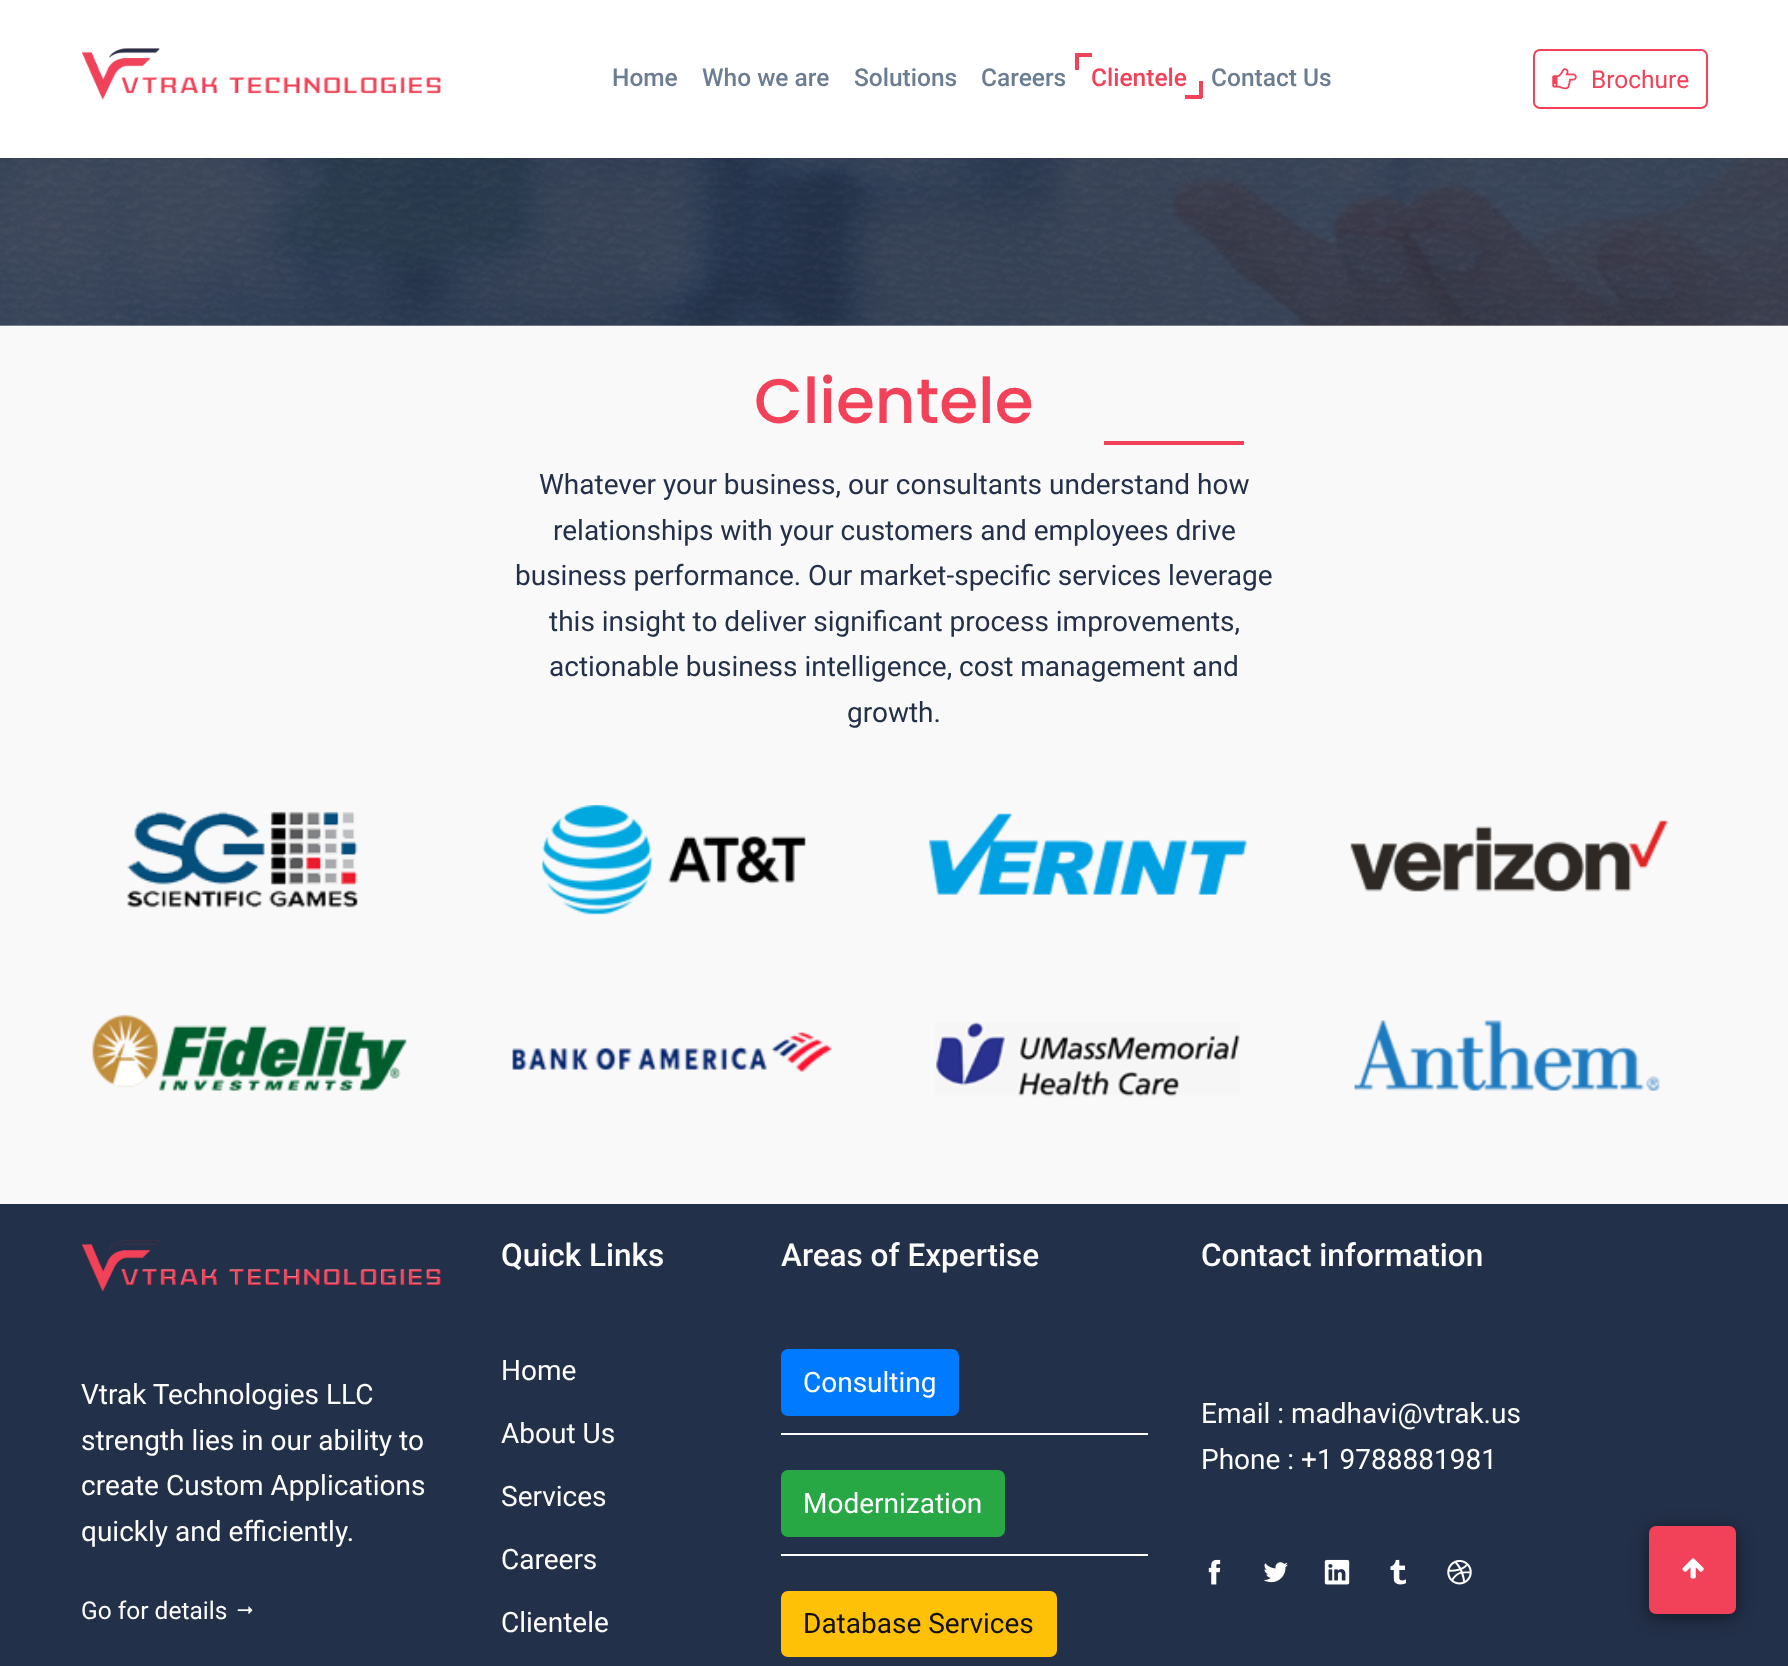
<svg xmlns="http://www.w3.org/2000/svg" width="1788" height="1666">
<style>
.a{font:500 24.5px Roboto;fill:#6a7d92}
.b{font:500 24.5px Roboto;fill:#f24259}
.c{font:24.5px Roboto;fill:#f24259}
.d{font:500 63px Poppins;fill:#f24259}
.e{font:28px Roboto;fill:#233049}
.f{font:500 31.5px Roboto;fill:#fefefe}
.g{font:28px Roboto;fill:#fefefe}
.h{font:28px Roboto;fill:#111}
.i{font:24.5px Roboto;fill:#fefefe}
</style>
<rect width="100%" height="100%" fill="#f9f9f9"/>
<image href="3.png" x="0" y="158" width="1788" height="168"/>
<image href="4.png" x="0" y="158" width="1788" height="168"/>
<path fill="#00000033" filter="blur(1px)" d="M0 0h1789v158H0z"/>
<path fill="#fff" d="M0 0h1788v158H0z"/>
<image href="1.png" x="82" y="48" width="359" height="52"/>
<path fill="#f24259" d="M1075 53h17v4H1075z"/>
<path fill="#f24259" d="M1075 53h4v17H1075z"/>
<path fill="#f24259" d="M1199 81h4v17H1199z"/>
<path fill="#f24259" d="M1185 95h17v4H1185z"/>
<rect fill="none" stroke="#f24259" stroke-width="2" x="1534" y="50" width="173" height="58" rx="6"/>
<image href="2.png" x="1552" y="68" width="25" height="22"/>
<path fill="#f24259" d="M1104 441h140v4H1104z"/>
<image href="5.png" x="127" y="811" width="231" height="97"/>
<image href="6.png" x="542" y="805" width="264" height="110"/>
<image href="7.png" x="928" y="813" width="319" height="82"/>
<image href="8.png" x="1350" y="820" width="319" height="72"/>
<image href="9.png" x="92" y="1014" width="315" height="77"/>
<image href="10.png" x="512" y="1032" width="320" height="40"/>
<image href="11.png" x="935" y="1022" width="305" height="75"/>
<image href="12.png" x="1354" y="1020" width="306" height="71"/>
<path fill="#233049" d="M0 1204h1788v462H0z"/>
<path fill="#fff" d="M781 1433h367v2H781z"/>
<rect fill="#007bff" stroke="#007bff" stroke-width="2" x="782" y="1350" width="176" height="65" rx="6"/>
<path fill="#fff" d="M781 1554h367v2H781z"/>
<rect fill="#28a745" stroke="#28a745" stroke-width="2" x="782" y="1471" width="222" height="65" rx="6"/>
<rect fill="#ffc107" stroke="#ffc107" stroke-width="2" x="782" y="1592" width="274" height="64" rx="6"/>
<image href="13.png" x="1208" y="1559" width="13" height="26"/>
<image href="14.png" x="1263" y="1562" width="25" height="21"/>
<image href="15.png" x="1324" y="1559" width="26" height="26"/>
<image href="16.png" x="1390" y="1559" width="16" height="26"/>
<image href="17.png" x="1447" y="1560" width="25" height="25"/>
<image href="18.png" x="82" y="1240" width="359" height="51"/>
<image href="19.png" x="237" y="1606" width="16" height="8"/>
<rect fill="#00000080" filter="blur(9px)" x="1649" y="1530" width="87" height="87" rx="7"/>
<rect fill="#f24259" x="1649" y="1526" width="87" height="88" rx="7"/>
<image href="20.png" x="1682" y="1558" width="22" height="21"/>
<text class="a" x="612" y="86">Home</text>
<text class="a" x="702" y="86">Who we are</text>
<text class="a" x="854" y="86">Solutions</text>
<text class="a" x="981" y="86">Careers</text>
<text class="b" x="1091" y="86">Clientele</text>
<text class="a" x="1211" y="86">Contact Us</text>
<text class="c" x="1591" y="88">Brochure</text>
<text class="d" x="754" y="423">Clientele</text>
<text class="e" x="539" y="494">Whatever your business, our consultants understand how</text>
<text class="e" x="553" y="540">relationships with your customers and employees drive</text>
<text class="e" x="515" y="585">business performance. Our market-specific services leverage</text>
<text class="e" x="549" y="631">this insight to deliver significant process improvements,</text>
<text class="e" x="549" y="676">actionable business intelligence, cost management and</text>
<text class="e" x="847" y="722">growth.</text>
<text class="f" x="501" y="1266">Quick Links</text>
<text class="g" x="501" y="1380">Home</text>
<text class="g" x="501" y="1443">About Us</text>
<text class="g" x="501" y="1506">Services</text>
<text class="g" x="501" y="1569">Careers</text>
<text class="g" x="501" y="1632">Clientele</text>
<text class="f" x="781" y="1266">Areas of Expertise</text>
<text class="g" x="803" y="1392">Consulting</text>
<text class="g" x="803" y="1513">Modernization</text>
<text class="h" x="803" y="1633">Database Services</text>
<text class="f" x="1201" y="1266">Contact information</text>
<text class="g" x="1201" y="1423">Email : madhavi@vtrak.us</text>
<text class="g" x="1201" y="1469">Phone : +1 9788881981</text>
<text class="g" x="81" y="1404">Vtrak Technologies LLC</text>
<text class="g" x="81" y="1450">strength lies in our ability to</text>
<text class="g" x="81" y="1495">create Custom Applications</text>
<text class="g" x="81" y="1541">quickly and efficiently.</text>
<text class="i" x="81" y="1619">Go for details</text>
</svg>
